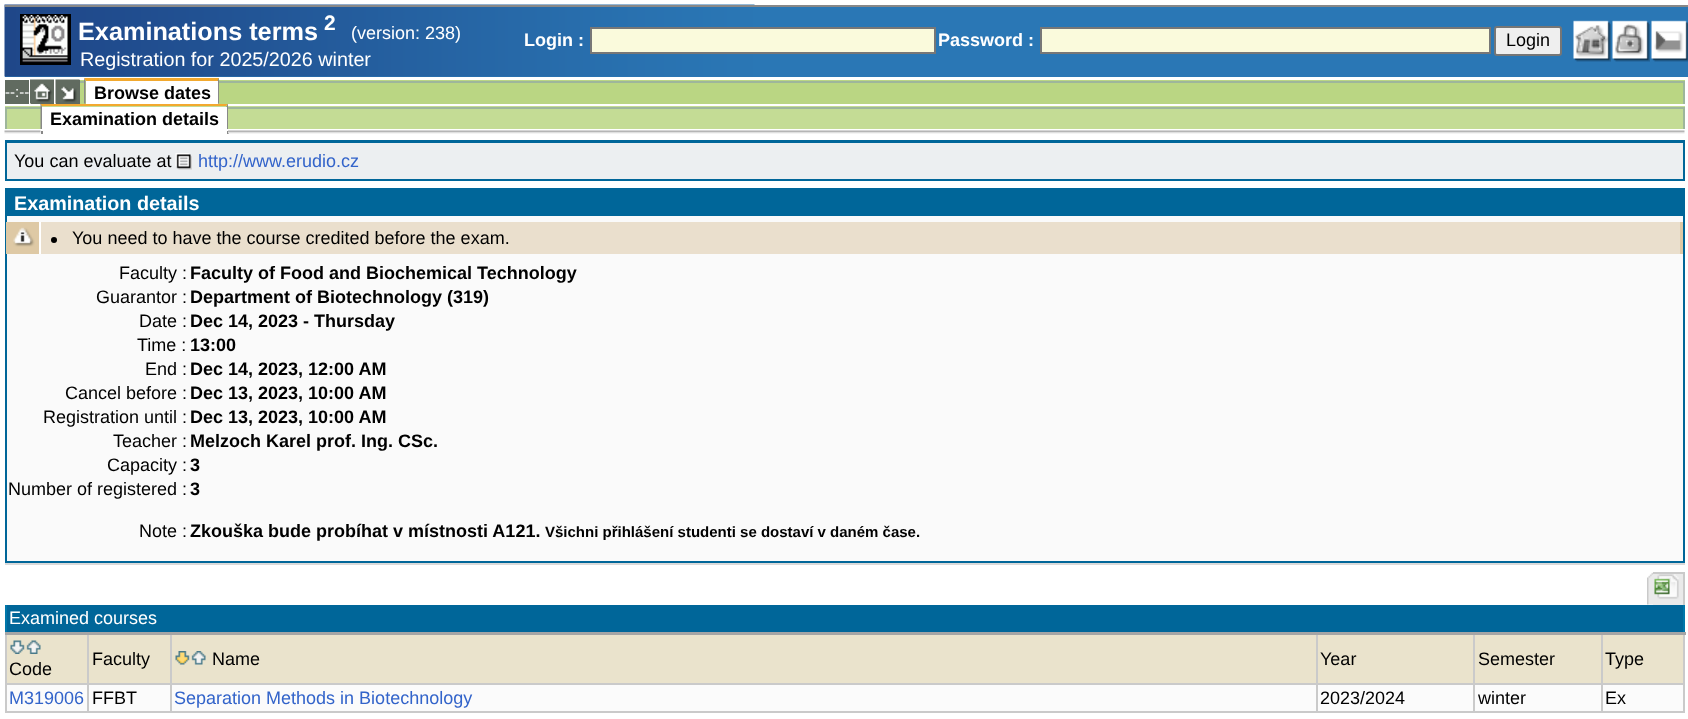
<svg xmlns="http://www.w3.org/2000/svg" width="1688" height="719">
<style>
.a{font:bold 25.25px Liberation Sans;fill:#fff}
.b{font:bold 21px Liberation Sans;fill:#fff}
.c{font:18px Liberation Sans;fill:#fff}
.d{font:19.75px Liberation Sans;fill:#fff}
.e{font:bold 18px Liberation Sans;fill:#fff}
.f{font:18px Liberation Sans;fill:#000}
.g{font:15px Liberation Sans;fill:#fff}
.h{font:bold 18px Liberation Sans;fill:#000}
.i{font:18px Liberation Sans;fill:#3364ca}
.j{font:bold 19.75px Liberation Sans;fill:#fff}
.k{font:bold 15px Liberation Sans;fill:#000}
</style>
<rect width="100%" height="100%" fill="#fff"/>
<path fill="#2a77b5" d="M5 7h1683v70H5z"/>
<image href="1.png" x="4" y="4" width="751" height="73"/>
<path fill="#888" d="M5 5h1683v2H5z"/>
<path fill="none" stroke="#000" stroke-width="2" d="M21 15h49v49H21z"/>
<image href="2.png" x="22" y="15" width="47" height="48"/>
<path fill="#fafadc" stroke="#777" stroke-width="2" d="M591 28h344v25H591z"/>
<path fill="#fafadc" stroke="#777" stroke-width="2" d="M1041 28h449v25H1041z"/>
<rect fill="#efefef" stroke="#767676" stroke-width="2" x="1495" y="27" width="66" height="28" rx="2"/>
<image href="3.png" x="1573" y="20" width="38" height="42"/>
<image href="4.png" x="1612" y="20" width="38" height="42"/>
<image href="5.png" x="1651" y="20" width="37" height="42"/>
<path fill="#bad683" d="M80 78h1605v26H80z"/>
<path fill="#616b60" d="M5 80h24v24H5z"/>
<path fill="#616b60" d="M31 103h23v1H31z"/>
<image href="6.png" x="30" y="79" width="24" height="25"/>
<path fill="#616b60" d="M56 80h24v24H56z"/>
<image href="7.png" x="55" y="79" width="25" height="25"/>
<path fill="#fff" d="M80 78h5v2H80z"/>
<path fill="#9eb69b" d="M80 81h5v2H80z"/>
<path fill="#f2a92f" d="M84 78h135l-1 3h-132z"/>
<path fill="#888" d="M219 78v25.5h-1.5v-22.5z"/>
<path fill="#888" d="M84 103.5v-25.5l1.5 3v22.5z"/>
<path fill="#fff" d="M86 81h132v23H86z"/>
<path fill="#fff" d="M219 78h1466v2H219z"/>
<path fill="#9eb69b" d="M219 81h1466v2H219z"/>
<path fill="#9eb69b" d="M1683 81h2v23H1683z"/>
<path fill="#c4dc95" d="M5 104h1680v25H5z"/>
<path fill="#fff" d="M5 104h36v2H5z"/>
<path fill="#9eb69b" d="M5 107h36v2H5z"/>
<path fill="#9eb69b" d="M5 107h2v22H5z"/>
<path fill="#f2a92f" d="M40 104h188l-2 2h-184z"/>
<path fill="#888" d="M228 103.5v25.5h-1.5v-22.5z"/>
<path fill="#888" d="M40.5 129v-25.5l1.5 3v22.5z"/>
<path fill="#fff" d="M42 107h185v22H42z"/>
<path fill="#fff" d="M228 104h1457v2H228z"/>
<path fill="#9eb69b" d="M228 107h1457v2H228z"/>
<path fill="#9eb69b" d="M1683 107h2v22H1683z"/>
<image href="8.png" x="4" y="130" width="37" height="4"/>
<path fill="#888" d="M227 131h2v3H227z"/>
<path fill="#888" d="M41 131h2v3H41z"/>
<image href="9.png" x="228" y="130" width="1457" height="4"/>
<path fill="#eceff1" d="M7 143h1676v36H7z"/>
<path fill="#069" d="M5 140h1680v3H5z"/>
<path fill="#069" d="M1683 140h2v40H1683z"/>
<path fill="#069" d="M5 179h1680v2H5z"/>
<path fill="#069" d="M5 140h2v40H5z"/>
<image href="10.png" x="175" y="153" width="17" height="17"/>
<path fill="#fafafa" d="M7 216h1676v345H7z"/>
<path fill="#069" d="M5 188h1680v3H5z"/>
<path fill="#069" d="M1683 188h2v375H1683z"/>
<path fill="#069" d="M5 561h1680v2H5z"/>
<path fill="#069" d="M5 188h2v375H5z"/>
<path fill="#069" d="M7 191h1676v25H7z"/>
<path fill="#dec9a5" d="M6 222h33v32H6z"/>
<image href="11.png" x="13" y="227" width="22" height="20"/>
<path fill="#eadfcd" d="M41 222h1639v32H41z"/>
<path fill="#dec9a5" d="M1680 222h3v32H1680z"/>
<path fill="#fff" d="M39 222h2v32H39z"/>
<circle fill="#000" cx="54" cy="240" r="3"/>
<path fill="#dadada" d="M5 563h1680v2H5z"/>
<image href="12.png" x="1647" y="572" width="6" height="33"/>
<path fill="#eaeaea" d="M1653 574h30v31H1653z"/>
<path fill="#cacaca" d="M1653 572h32v2H1653z"/>
<path fill="#cacaca" d="M1683 572h2v33H1683z"/>
<image href="13.png" x="1654" y="574" width="25" height="25"/>
<path fill="#069" d="M7 605h1676v27H7z"/>
<path fill="#cacaca" d="M5 683h1680v2H5z"/>
<path fill="#cacaca" d="M1683 633h2v80H1683z"/>
<path fill="#07a" d="M1683 605h2v30H1683z"/>
<path fill="#cacaca" d="M5 711h1680v2H5z"/>
<path fill="#cacaca" d="M5 633h2v80H5z"/>
<path fill="#07a" d="M5 605h2v30H5z"/>
<path fill="#eae3cc" d="M7 635h1676v48H7z"/>
<path fill="#fbfbfb" d="M7 685h1676v26H7z"/>
<path fill="#cacaca" d="M87 633h2v80H87z"/>
<path fill="#cacaca" d="M170 633h2v80H170z"/>
<path fill="#cacaca" d="M1316 633h2v80H1316z"/>
<path fill="#cacaca" d="M1473 633h2v80H1473z"/>
<path fill="#cacaca" d="M1601 633h2v80H1601z"/>
<path fill="#a5a5a5" d="M5 632h1681v3H5z"/>
<image href="14.png" x="10" y="640" width="15" height="14"/>
<image href="15.png" x="26" y="640" width="15" height="14"/>
<image href="16.png" x="175" y="651" width="15" height="14"/>
<image href="17.png" x="191" y="651" width="15" height="14"/>
<text class="a" x="78" y="40">Examinations terms</text>
<text class="b" x="324" y="30">2</text>
<text class="c" x="351" y="39">(version: 238)</text>
<text class="d" x="80" y="66">Registration for 2025/2026 winter</text>
<text class="e" x="524" y="46">Login :</text>
<text class="e" x="938" y="46">Password :</text>
<text class="f" x="1506" y="46">Login</text>
<text class="g" x="5" y="97">--:--</text>
<text class="h" x="94" y="99">Browse dates</text>
<text class="h" x="50" y="125">Examination details</text>
<text class="f" x="14" y="167">You can evaluate at</text>
<text class="i" x="198" y="167">http://www.erudio.cz</text>
<text class="j" x="14" y="210">Examination details</text>
<text class="f" x="72" y="244">You need to have the course credited before the exam.</text>
<text class="f" x="119" y="279">Faculty :</text>
<text class="h" x="190" y="279">Faculty of Food and Biochemical Technology</text>
<text class="f" x="96" y="303">Guarantor :</text>
<text class="h" x="190" y="303">Department of Biotechnology (319)</text>
<text class="f" x="139" y="327">Date :</text>
<text class="h" x="190" y="327">Dec 14, 2023 - Thursday</text>
<text class="f" x="137" y="351">Time :</text>
<text class="h" x="190" y="351">13:00</text>
<text class="f" x="145" y="375">End :</text>
<text class="h" x="190" y="375">Dec 14, 2023, 12:00 AM</text>
<text class="f" x="65" y="399">Cancel before :</text>
<text class="h" x="190" y="399">Dec 13, 2023, 10:00 AM</text>
<text class="f" x="43" y="423">Registration until :</text>
<text class="h" x="190" y="423">Dec 13, 2023, 10:00 AM</text>
<text class="f" x="113" y="447">Teacher :</text>
<text class="h" x="190" y="447">Melzoch Karel prof. Ing. CSc.</text>
<text class="f" x="107" y="471">Capacity :</text>
<text class="h" x="190" y="471">3</text>
<text class="f" x="8" y="495">Number of registered :</text>
<text class="h" x="190" y="495">3</text>
<text class="f" x="139" y="537">Note :</text>
<text class="h" x="190" y="537">Zkouška bude probíhat v místnosti A121.</text>
<text class="k" x="545" y="537">Všichni přihlášení studenti se dostaví v daném čase.</text>
<text class="c" x="9" y="624">Examined courses</text>
<text class="f" x="9" y="675">Code</text>
<text class="f" x="92" y="665">Faculty</text>
<text class="f" x="212" y="665">Name</text>
<text class="f" x="1320" y="665">Year</text>
<text class="f" x="1478" y="665">Semester</text>
<text class="f" x="1605" y="665">Type</text>
<text class="i" x="9" y="704">M319006</text>
<text class="f" x="92" y="704">FFBT</text>
<text class="i" x="174" y="704">Separation Methods in Biotechnology</text>
<text class="f" x="1320" y="704">2023/2024</text>
<text class="f" x="1478" y="704">winter</text>
<text class="f" x="1605" y="704">Ex</text>
</svg>
